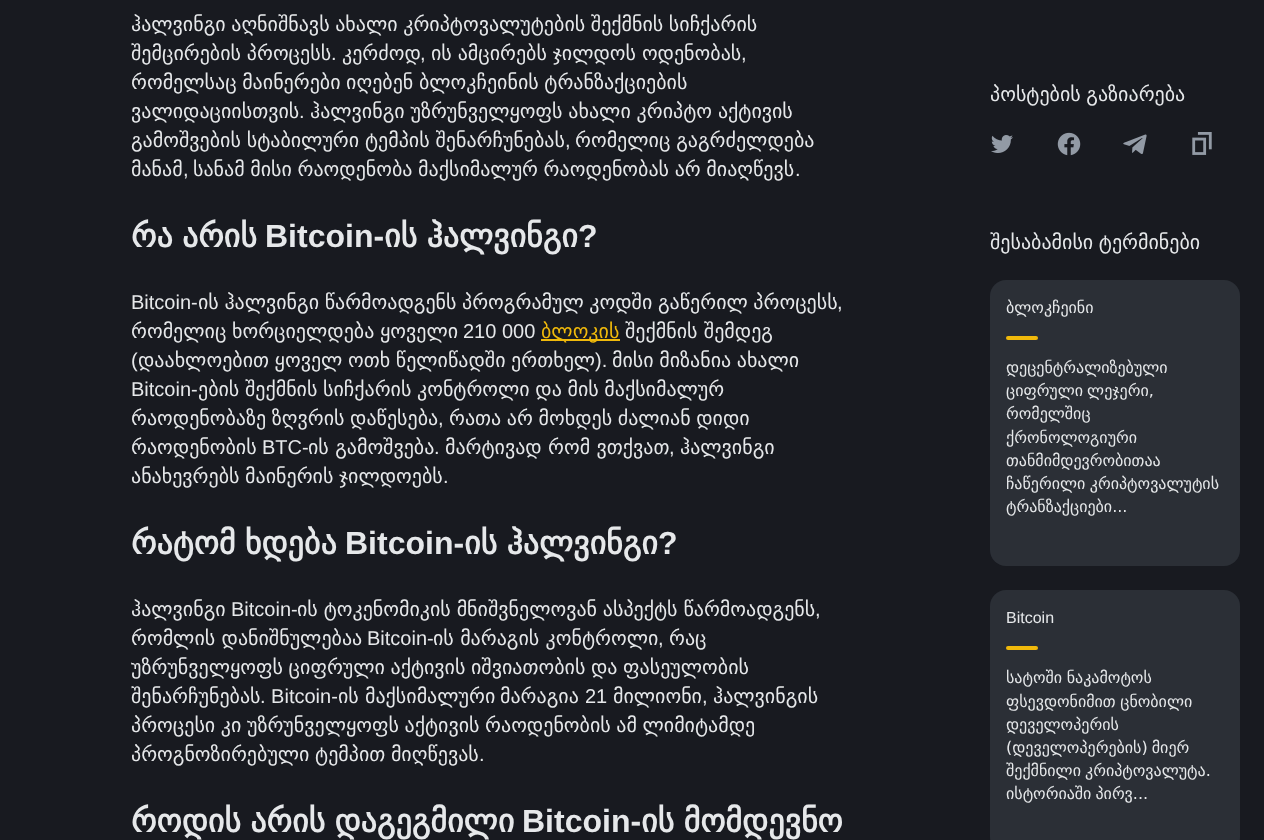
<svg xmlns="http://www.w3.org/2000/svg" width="1264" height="840">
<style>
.a{font:20px DejaVu Sans;fill:#e6e8ea}
.b{font:20px Liberation Sans;fill:#e6e8ea}
.c{font:bold 32px DejaVu Sans;fill:#e6e8ea}
.d{font:bold 32px Liberation Sans;fill:#e6e8ea}
.e{font:20px DejaVu Sans;fill:#f0b90b}
.f{font:16px DejaVu Sans;fill:#e6e8ea}
.g{font:16px Liberation Sans;fill:#e6e8ea}
</style>
<rect width="100%" height="100%" fill="#181a20"/>
<path fill="#f0b90b" d="M541 339h79v2H541z"/>
<image href="1.png" x="991" y="135" width="22" height="18"/>
<image href="2.png" x="1057" y="132" width="24" height="24"/>
<image href="3.png" x="1123" y="134" width="24" height="20"/>
<image href="4.png" x="1192" y="132" width="20" height="23"/>
<rect fill="#2b2f36" x="990" y="280" width="250" height="286" rx="16"/>
<rect fill="#f0b90b" x="1006" y="336" width="32" height="4" rx="2"/>
<rect fill="#2b2f36" x="990" y="590" width="250" height="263" rx="16"/>
<rect fill="#f0b90b" x="1006" y="646" width="32" height="4" rx="2"/>
<text class="a" x="131" y="31" word-spacing="-0.75">ჰალვინგი აღნიშნავს ახალი კრიპტოვალუტების შექმნის სიჩქარის</text>
<text class="a" x="131" y="60" word-spacing="-0.5">შემცირების პროცესს</text>
<text class="b" x="331" y="60">.</text>
<text class="a" x="342" y="60">კერძოდ</text>
<text class="b" x="420" y="60">,</text>
<text class="a" x="431" y="60" word-spacing="-0.5">ის ამცირებს ჯილდოს ოდენობას</text>
<text class="b" x="741" y="60">,</text>
<text class="a" x="131" y="89" word-spacing="-0.75">რომელსაც მაინერები იღებენ ბლოკჩეინის ტრანზაქციების</text>
<text class="a" x="131" y="118">ვალიდაციისთვის</text>
<text class="b" x="299" y="118">.</text>
<text class="a" x="310" y="118" word-spacing="-0.5">ჰალვინგი უზრუნველყოფს ახალი კრიპტო აქტივის</text>
<text class="a" x="131" y="147" word-spacing="-0.5">გამოშვების სტაბილური ტემპის შენარჩუნებას</text>
<text class="b" x="565" y="147">,</text>
<text class="a" x="575" y="147" word-spacing="-0.5">რომელიც გაგრძელდება</text>
<text class="a" x="131" y="176">მანამ</text>
<text class="b" x="183" y="176">,</text>
<text class="a" x="193" y="176" word-spacing="-0.75">სანამ მისი რაოდენობა მაქსიმალურ რაოდენობას არ მიაღწევს</text>
<text class="b" x="795" y="176">.</text>
<text class="c" x="131" y="247" word-spacing="-1">რა არის</text>
<text class="d" x="265" y="247">Bitcoin-</text>
<text class="c" x="384" y="247" word-spacing="-1">ის ჰალვინგი</text>
<text class="d" x="578" y="247">?</text>
<text class="b" x="131" y="309">Bitcoin-</text>
<text class="a" x="198" y="309" word-spacing="-0.75">ის ჰალვინგი წარმოადგენს პროგრამულ კოდში გაწერილ პროცესს</text>
<text class="b" x="837" y="309">,</text>
<text class="a" x="131" y="338">რომელიც</text>
<text class="a" x="232" y="338">ხორციელდება</text>
<text class="a" x="380" y="338">ყოველი</text>
<text class="b" x="463" y="338">210 000</text>
<text class="e" x="541" y="338">ბლოკის</text>
<text class="a" x="625" y="338">შექმნის შემდეგ</text>
<text class="b" x="131" y="367">(</text>
<text class="a" x="138" y="367" word-spacing="-0.75">დაახლოებით ყოველ ოთხ წელიწადში ერთხელ</text>
<text class="b" x="595" y="367">).</text>
<text class="a" x="612" y="367" word-spacing="-0.75">მისი მიზანია ახალი</text>
<text class="b" x="131" y="396">Bitcoin-</text>
<text class="a" x="198" y="396" word-spacing="-0.75">ების შექმნის სიჩქარის კონტროლი და მის მაქსიმალურ</text>
<text class="a" x="131" y="425" word-spacing="-0.75">რაოდენობაზე ზღვრის დაწესება</text>
<text class="b" x="438" y="425">,</text>
<text class="a" x="449" y="425" word-spacing="-0.75">რათა არ მოხდეს ძალიან დიდი</text>
<text class="a" x="131" y="454">რაოდენობის</text>
<text class="b" x="262" y="454">BTC-</text>
<text class="a" x="308" y="454">ის გამოშვება</text>
<text class="b" x="434" y="454">.</text>
<text class="a" x="445" y="454">მარტივად რომ ვთქვათ</text>
<text class="b" x="669" y="454">,</text>
<text class="a" x="680" y="454">ჰალვინგი</text>
<text class="a" x="131" y="483" word-spacing="-0.75">ანახევრებს მაინერის ჯილდოებს</text>
<text class="b" x="443" y="483">.</text>
<text class="c" x="131" y="554" word-spacing="-1">რატომ ხდება</text>
<text class="d" x="345" y="554">Bitcoin-</text>
<text class="c" x="464" y="554" word-spacing="-1">ის ჰალვინგი</text>
<text class="d" x="658" y="554">?</text>
<text class="a" x="131" y="616">ჰალვინგი</text>
<text class="b" x="231" y="616">Bitcoin-</text>
<text class="a" x="297" y="616" word-spacing="-0.5">ის ტოკენომიკის მნიშვნელოვან ასპექტს წარმოადგენს</text>
<text class="b" x="815" y="616">,</text>
<text class="a" x="131" y="645">რომლის დანიშნულებაა</text>
<text class="b" x="367" y="645">Bitcoin-</text>
<text class="a" x="433" y="645">ის მარაგის კონტროლი</text>
<text class="b" x="658" y="645">,</text>
<text class="a" x="669" y="645">რაც</text>
<text class="a" x="131" y="674" word-spacing="-0.75">უზრუნველყოფს ციფრული აქტივის იშვიათობის და ფასეულობის</text>
<text class="a" x="131" y="703">შენარჩუნებას</text>
<text class="b" x="260" y="703">. Bitcoin-</text>
<text class="a" x="338" y="703">ის</text>
<text class="a" x="365" y="703">მაქსიმალური</text>
<text class="a" x="500" y="703">მარაგია</text>
<text class="b" x="585" y="703">21</text>
<text class="a" x="613" y="703">მილიონი</text>
<text class="b" x="702" y="703">,</text>
<text class="a" x="713" y="703">ჰალვინგის</text>
<text class="a" x="131" y="732" word-spacing="-0.75">პროცესი კი უზრუნველყოფს აქტივის რაოდენობის ამ ლიმიტამდე</text>
<text class="a" x="131" y="761" word-spacing="-0.75">პროგნოზირებული ტემპით მიღწევას</text>
<text class="b" x="479" y="761">.</text>
<text class="c" x="131" y="832" word-spacing="-1">როდის არის დაგეგმილი</text>
<text class="d" x="522" y="832">Bitcoin-</text>
<text class="c" x="641" y="832" word-spacing="-1">ის მომდევნო</text>
<text class="a" x="990" y="101" word-spacing="-0.75">პოსტების გაზიარება</text>
<text class="a" x="990" y="249" word-spacing="-0.75">შესაბამისი ტერმინები</text>
<text class="f" x="1006" y="313">ბლოკჩეინი</text>
<text class="f" x="1006" y="373">დეცენტრალიზებული</text>
<text class="f" x="1006" y="396" word-spacing="-1">ციფრული ლეჯერი,</text>
<text class="f" x="1006" y="419">რომელშიც</text>
<text class="f" x="1006" y="443">ქრონოლოგიური</text>
<text class="f" x="1006" y="466">თანმიმდევრობითაა</text>
<text class="f" x="1006" y="489" word-spacing="-0.5">ჩაწერილი კრიპტოვალუტის</text>
<text class="f" x="1006" y="512">ტრანზაქციები...</text>
<text class="g" x="1006" y="623">Bitcoin</text>
<text class="f" x="1006" y="683" word-spacing="-0.5">სატოში ნაკამოტოს</text>
<text class="f" x="1006" y="707" word-spacing="-0.5">ფსევდონიმით ცნობილი</text>
<text class="f" x="1006" y="730">დეველოპერის</text>
<text class="f" x="1006" y="753" word-spacing="-1">(დეველოპერების) მიერ</text>
<text class="f" x="1006" y="776" word-spacing="-1">შექმნილი კრიპტოვალუტა.</text>
<text class="f" x="1006" y="799" word-spacing="-1">ისტორიაში პირვ...</text>
</svg>
